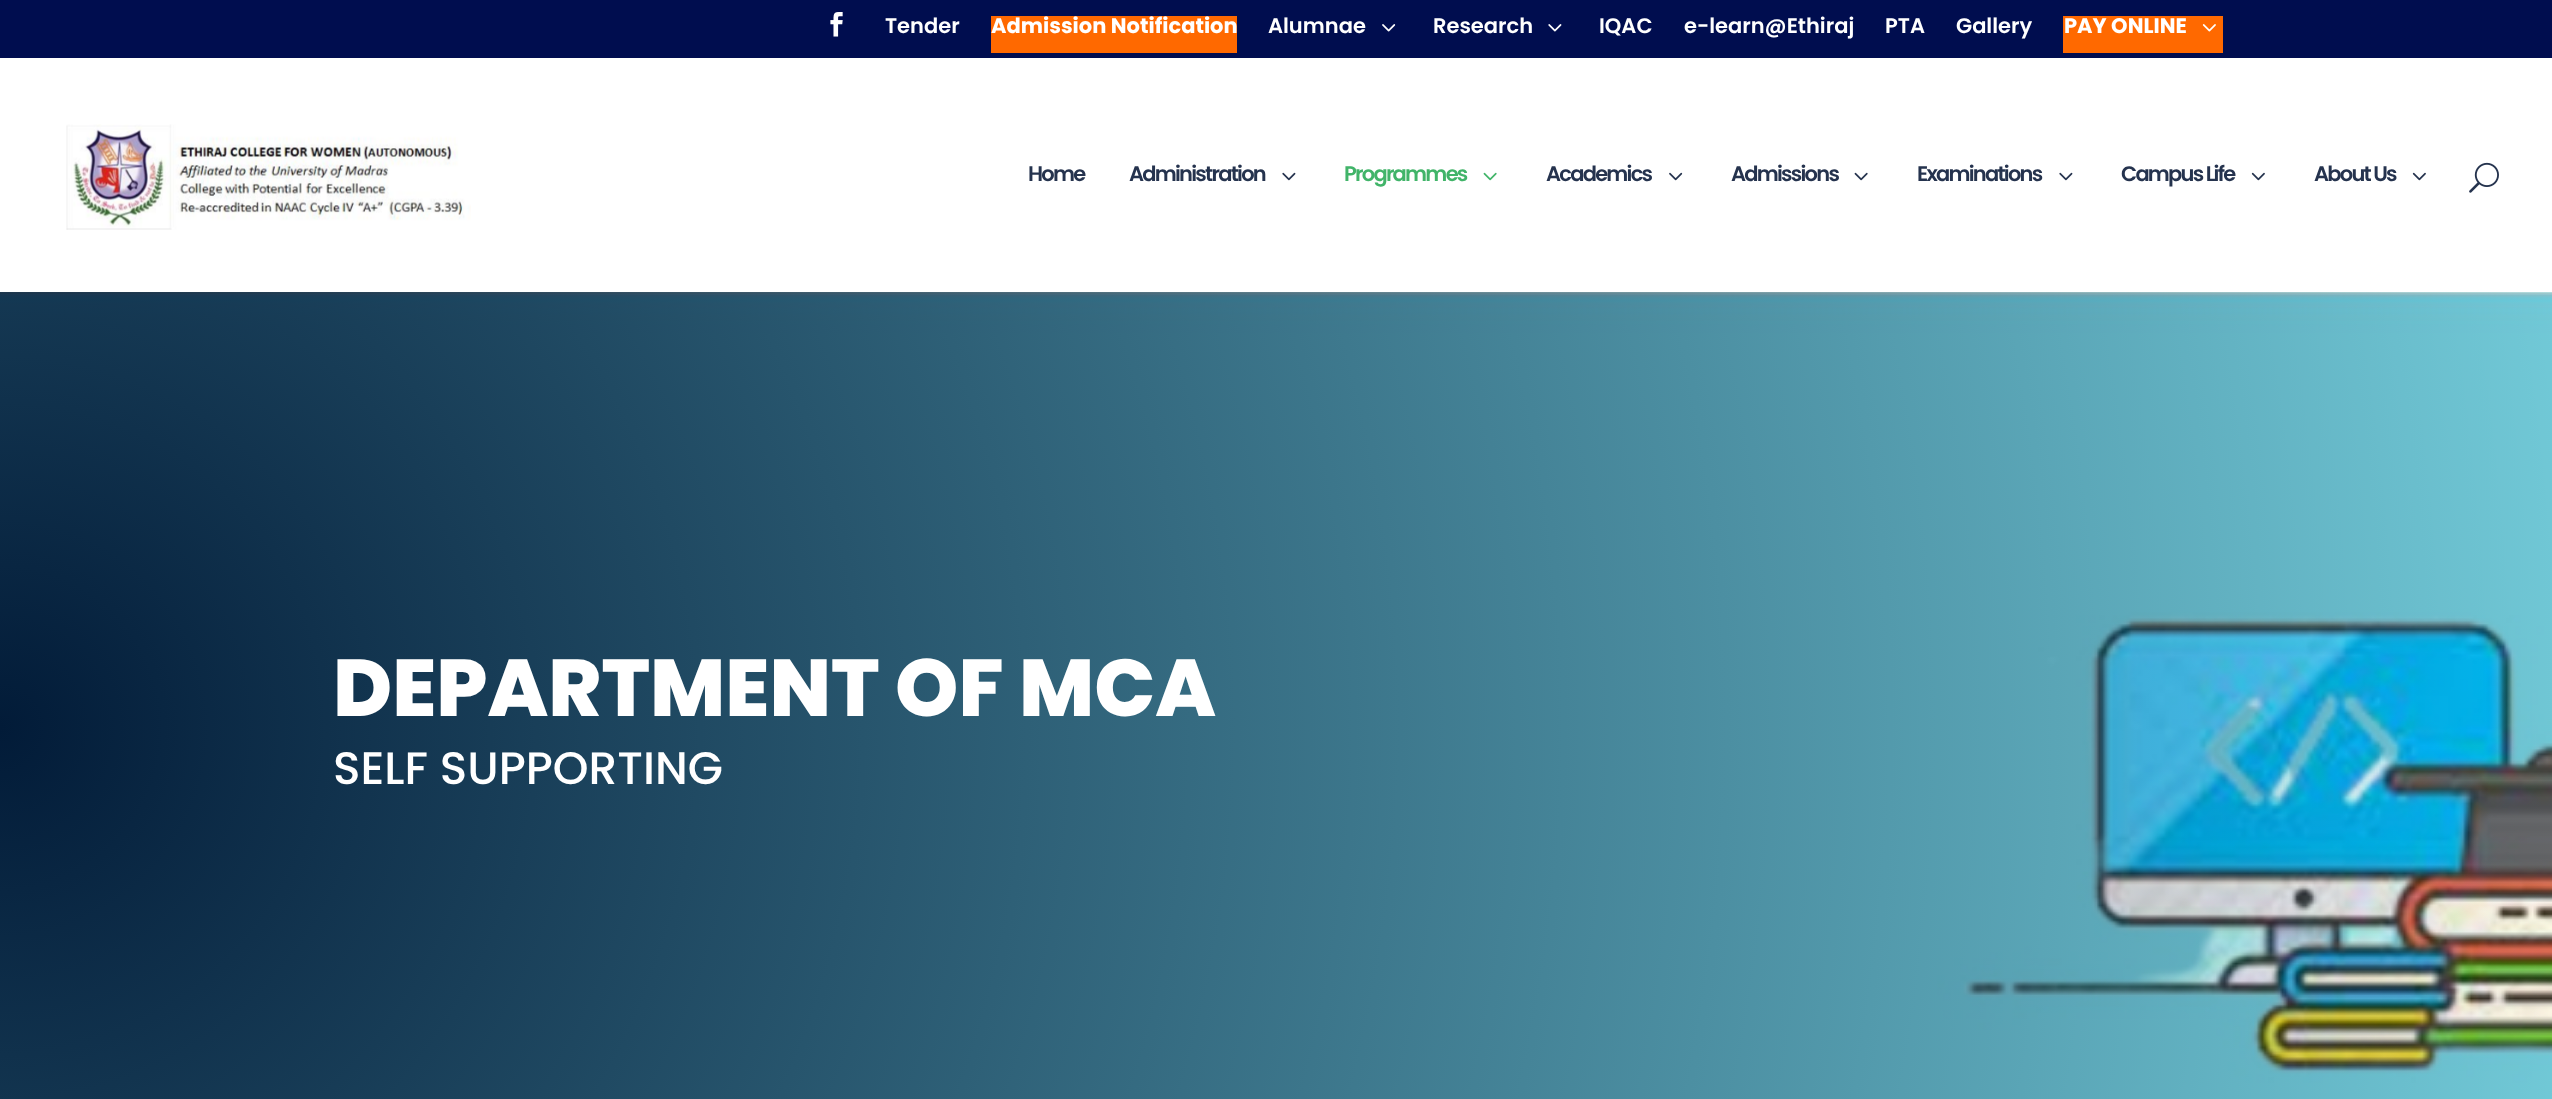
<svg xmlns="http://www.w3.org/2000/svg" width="2552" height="1099">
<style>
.a{font:600 21px Poppins;fill:#fff}
.b{font:bold 21px Poppins;fill:#fff}
.c{font:600 21px Poppins;letter-spacing:-1.75px;fill:#25334e}
.d{font:600 21px Poppins;letter-spacing:-1.75px;fill:#41b469}
.e{font:800 80.5px Poppins;fill:#fff}
.f{font:500 45.5px Poppins;fill:#fff}
</style>
<rect width="100%" height="100%" fill="#fff"/>
<path fill="#000d4f" d="M0 0h2552v58H0z"/>
<image href="1.png" x="830" y="12" width="13" height="25"/>
<path fill="#ff6900" d="M991 16h246v37H991z"/>
<image href="2.png" x="1382" y="24" width="14" height="8"/>
<image href="3.png" x="1548" y="24" width="14" height="8"/>
<path fill="#ff6900" d="M2063 16h160v37H2063z"/>
<image href="4.png" x="2202" y="24" width="14" height="8"/>
<image href="12.png" x="0" y="292" width="2552" height="807"/>
<path fill="#0000001a" d="M0 292h2552v2H0z"/>
<image href="5.png" x="66" y="124" width="405" height="106"/>
<image href="6.png" x="1282" y="172" width="14" height="9"/>
<image href="7.png" x="1483" y="172" width="14" height="9"/>
<image href="8.png" x="1669" y="172" width="14" height="9"/>
<image href="9.png" x="1854" y="172" width="14" height="9"/>
<image href="6.png" x="2059" y="172" width="14" height="9"/>
<image href="10.png" x="2251" y="172" width="14" height="9"/>
<image href="10.png" x="2412" y="172" width="14" height="9"/>
<image href="11.png" x="2469" y="162" width="30" height="31"/>
<text class="a" x="885" y="33">Tender</text>
<text class="b" x="991" y="33">Admission Notification</text>
<text class="a" x="1268" y="33">Alumnae</text>
<text class="a" x="1433" y="33">Research</text>
<text class="a" x="1599" y="33">IQAC</text>
<text class="a" x="1684" y="33">e-learn@Ethiraj</text>
<text class="a" x="1885" y="33">PTA</text>
<text class="a" x="1956" y="33">Gallery</text>
<text class="b" x="2064" y="33">PAY ONLINE</text>
<text class="c" x="1028" y="181">Home</text>
<text class="c" x="1129" y="181">Administration</text>
<text class="d" x="1344" y="181">Programmes</text>
<text class="c" x="1546" y="181">Academics</text>
<text class="c" x="1731" y="181">Admissions</text>
<text class="c" x="1917" y="181">Examinations</text>
<text class="c" x="2121" y="181">Campus Life</text>
<text class="c" x="2314" y="181">About Us</text>
<text class="e" x="333" y="716">DEPARTMENT OF MCA</text>
<text class="f" x="333" y="784">SELF SUPPORTING</text>
</svg>
